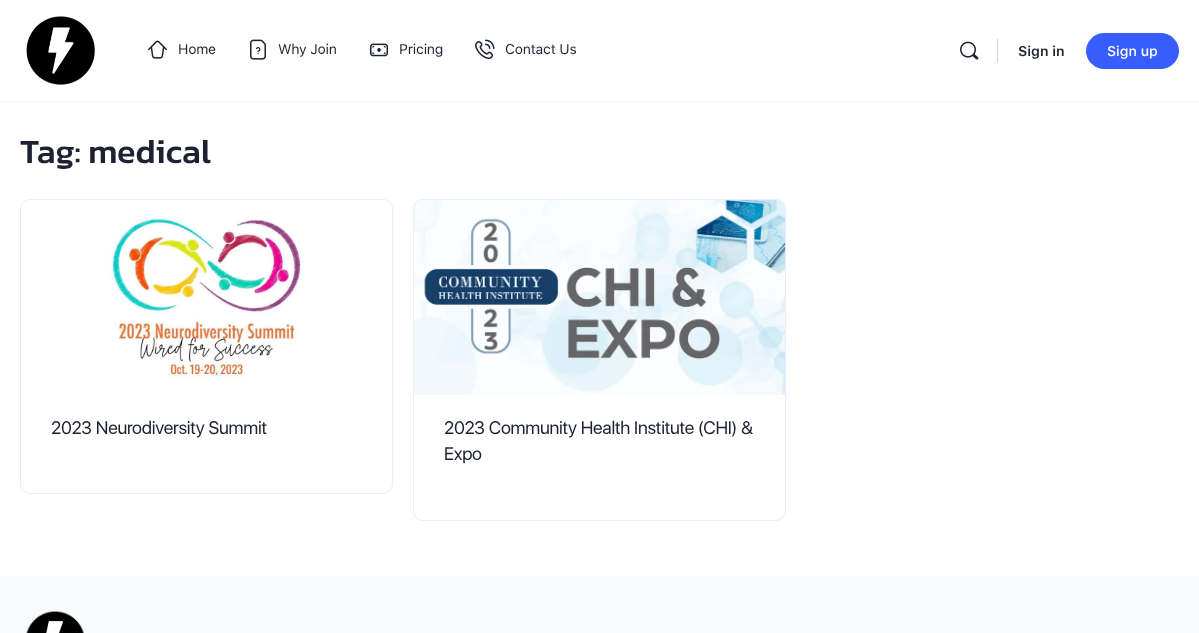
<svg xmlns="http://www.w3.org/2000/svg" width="1199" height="633">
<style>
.a{font:14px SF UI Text;letter-spacing:-0.25px;fill:#1e2132}
.b{font:600 14px SF UI Text;fill:#1e2132}
.c{font:500 14px SF UI Text;fill:#fff}
.d{font:500 34px Kanit;fill:#1e2132}
.e{font:18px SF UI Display;letter-spacing:-0.25px;fill:#1e2132}
</style>
<rect width="100%" height="100%" fill="#fff"/>
<path fill="#f6f7f8" d="M0 101h1199v1H0z"/>
<image href="1.png" x="26" y="16" width="69" height="69"/>
<image href="2.png" x="148" y="40" width="19" height="19"/>
<image href="3.png" x="250" y="39" width="16" height="21"/>
<image href="4.png" x="370" y="43" width="18" height="14"/>
<image href="5.png" x="475" y="39" width="20" height="21"/>
<image href="6.png" x="960" y="41" width="19" height="19"/>
<path fill="#d2d3d6" d="M997 39h1v24H997z"/>
<rect fill="#385dff" stroke="#385dff" x="1086.5" y="33.5" width="92" height="35" rx="17.5"/>
<rect fill="none" stroke="#eaebff" x="20.5" y="199.5" width="372" height="294" rx="9.5"/>
<path fill="#f2f2f2" d="M30 200h353c5 0 9 4 9 9v186h-371v-186c0-5 4-9 9-9z"/>
<image href="7.png" x="21" y="200" width="371" height="195"/>
<rect fill="none" stroke="#eaebff" x="413.5" y="199.5" width="372" height="321" rx="9.5"/>
<path fill="#f2f2f2" d="M423 200h353c5 0 9 4 9 9v186h-371v-186c0-5 4-9 9-9z"/>
<image href="8.png" x="414" y="200" width="371" height="195"/>
<path fill="#fafbfd" d="M0 576h1199v57H0z"/>
<image href="9.png" x="26" y="611" width="58" height="22"/>
<text class="a" x="178" y="54">Home</text>
<text class="a" x="278" y="54">Why Join</text>
<text class="a" x="399" y="54">Pricing</text>
<text class="a" x="505" y="54">Contact Us</text>
<text class="b" x="1018" y="56">Sign in</text>
<text class="c" x="1107" y="56">Sign up</text>
<text class="d" x="20" y="163">Tag: medical</text>
<text class="e" x="51" y="434">2023 Neurodiversity Summit</text>
<text class="e" x="444" y="434">2023 Community Health Institute (CHI) &amp;</text>
<text class="e" x="444" y="460">Expo</text>
</svg>
